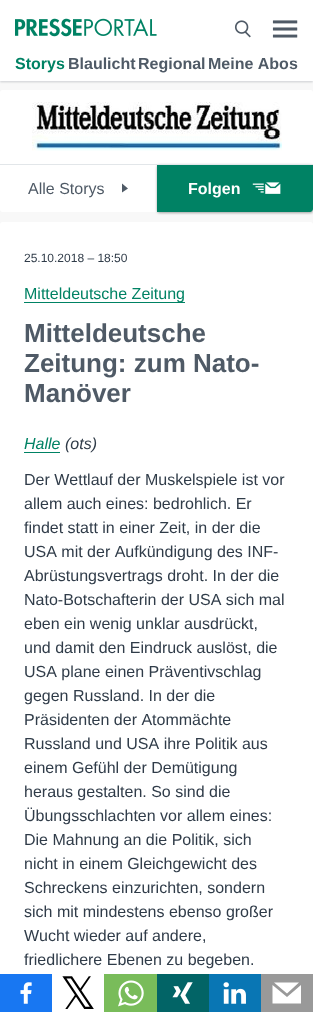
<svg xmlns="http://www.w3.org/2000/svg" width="313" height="1012">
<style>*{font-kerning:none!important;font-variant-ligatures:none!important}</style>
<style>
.a{font:bold 16px Liberation Sans;fill:#008264}
.b{font:bold 16px Liberation Sans;fill:#4f5a66}
.c{font:16px Liberation Sans;fill:#4f5a66}
.d{font:bold 16px Liberation Sans;fill:#fff}
.e{font:12px Liberation Sans;fill:#303c49}
.f{font:16px Liberation Sans;fill:#008264}
.g{font:bold 26px Liberation Sans;fill:#4f5a66}
.h{font:italic 16px Liberation Sans;fill:#008264}
.i{font:italic 16px Liberation Sans;fill:#303c49}
.j{font:16px Liberation Sans;fill:#303c49}
.k{font:45px DejaVu Sans;fill:#000}
</style>
<rect width="100%" height="100%" fill="#f8f8f8"/>
<path fill="#4f5a6629" filter="blur(1px)" d="M0 1h313v81H0z"/>
<path fill="#4f5a661a" filter="blur(1px)" d="M0 1h313v81H0z"/>
<path fill="#fff" d="M0 0h313v81H0z"/>
<image href="1.png" x="15" y="18" width="142" height="19"/>
<image href="2.png" x="234" y="20" width="17" height="18"/>
<image href="3.png" x="272" y="20" width="26" height="18"/>
<rect fill="#fff" y="90" width="313" height="122" rx="3"/>
<image href="4.png" x="32" y="102" width="250" height="49"/>
<path fill="#e2e6e9" d="M0 164h157v1H0z"/>
<path fill="#4f5a66" d="M122 192.5v-9l6 5z"/>
<rect fill="#0000003d" filter="blur(1px)" x="157" y="165" width="156" height="48" rx="3"/>
<rect fill="#0000001f" filter="blur(1.5px)" x="157" y="165" width="156" height="48" rx="3"/>
<path fill="#008264" d="M157 164h156v45c0 1.5-1.5 3-3 3h-153z"/>
<path fill="#e2e6e9" d="M157 164h156v1H157z"/>
<image href="5.png" x="252" y="182" width="29" height="12"/>
<rect fill="#fff" y="222" width="313" height="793" rx="3"/>
<path fill="#008264" d="M24 302h161v1H24z"/>
<path fill="#008264" d="M24 452h36v1H24z"/>
<path fill="#1877f2" d="M0 974h52v38H0z"/>
<image href="6.png" x="20" y="982" width="12" height="22"/>
<path fill="#79bc5a" d="M104 974h53v38H104z"/>
<image href="7.png" x="118" y="980" width="26" height="27"/>
<path fill="#026466" d="M157 974h52v38H157z"/>
<image href="8.png" x="172" y="982" width="21" height="22"/>
<path fill="#0976b4" d="M209 974h52v38H209z"/>
<image href="9.png" x="223" y="982" width="23" height="22"/>
<path fill="#999" d="M261 974h52v38H261z"/>
<path fill="#fff" d="M301 1003.5h-28.5v-18.5l14.5 12l14-12zm-14-10l-13-11h25z"/>
<text class="a" x="15" y="69">Storys</text>
<text class="b" x="68" y="69">Blaulicht</text>
<text class="b" x="138" y="69">Regional</text>
<text class="b" x="208" y="69">Meine Abos</text>
<text class="c" x="28" y="194">Alle Storys</text>
<text class="d" x="188" y="194">Folgen</text>
<text class="e" x="24" y="262">25.10.2018 – 18:50</text>
<text class="f" x="24" y="299">Mitteldeutsche Zeitung</text>
<text class="g" x="24" y="342">Mitteldeutsche</text>
<text class="g" x="24" y="372">Zeitung: zum Nato-</text>
<text class="g" x="24" y="402">Manöver</text>
<text class="h" x="24" y="449">Halle</text>
<text class="i" x="65" y="449">(ots)</text>
<text class="j" x="24" y="485">Der Wettlauf der Muskelspiele ist vor</text>
<text class="j" x="24" y="509">allem auch eines: bedrohlich. Er</text>
<text class="j" x="24" y="533">findet statt in einer Zeit, in der die</text>
<text class="j" x="24" y="557">USA mit der Aufkündigung des INF-</text>
<text class="j" x="24" y="581">Abrüstungsvertrags droht. In der die</text>
<text class="j" x="24" y="605">Nato-Botschafterin der USA sich mal</text>
<text class="j" x="24" y="629">eben ein wenig unklar ausdrückt,</text>
<text class="j" x="24" y="653">und damit den Eindruck auslöst, die</text>
<text class="j" x="24" y="677">USA plane einen Präventivschlag</text>
<text class="j" x="24" y="701">gegen Russland. In der die</text>
<text class="j" x="24" y="725">Präsidenten der Atommächte</text>
<text class="j" x="24" y="749">Russland und USA ihre Politik aus</text>
<text class="j" x="24" y="773">einem Gefühl der Demütigung</text>
<text class="j" x="24" y="797">heraus gestalten. So sind die</text>
<text class="j" x="24" y="821">Übungsschlachten vor allem eines:</text>
<text class="j" x="24" y="845">Die Mahnung an die Politik, sich</text>
<text class="j" x="24" y="869">nicht in einem Gleichgewicht des</text>
<text class="j" x="24" y="893">Schreckens einzurichten, sondern</text>
<text class="j" x="24" y="917">sich mit mindestens ebenso großer</text>
<text class="j" x="24" y="941">Wucht wieder auf andere,</text>
<text class="j" x="24" y="965">friedlichere Ebenen zu begeben.</text>
<text class="k" x="60" y="1009">𝕏</text>
</svg>
